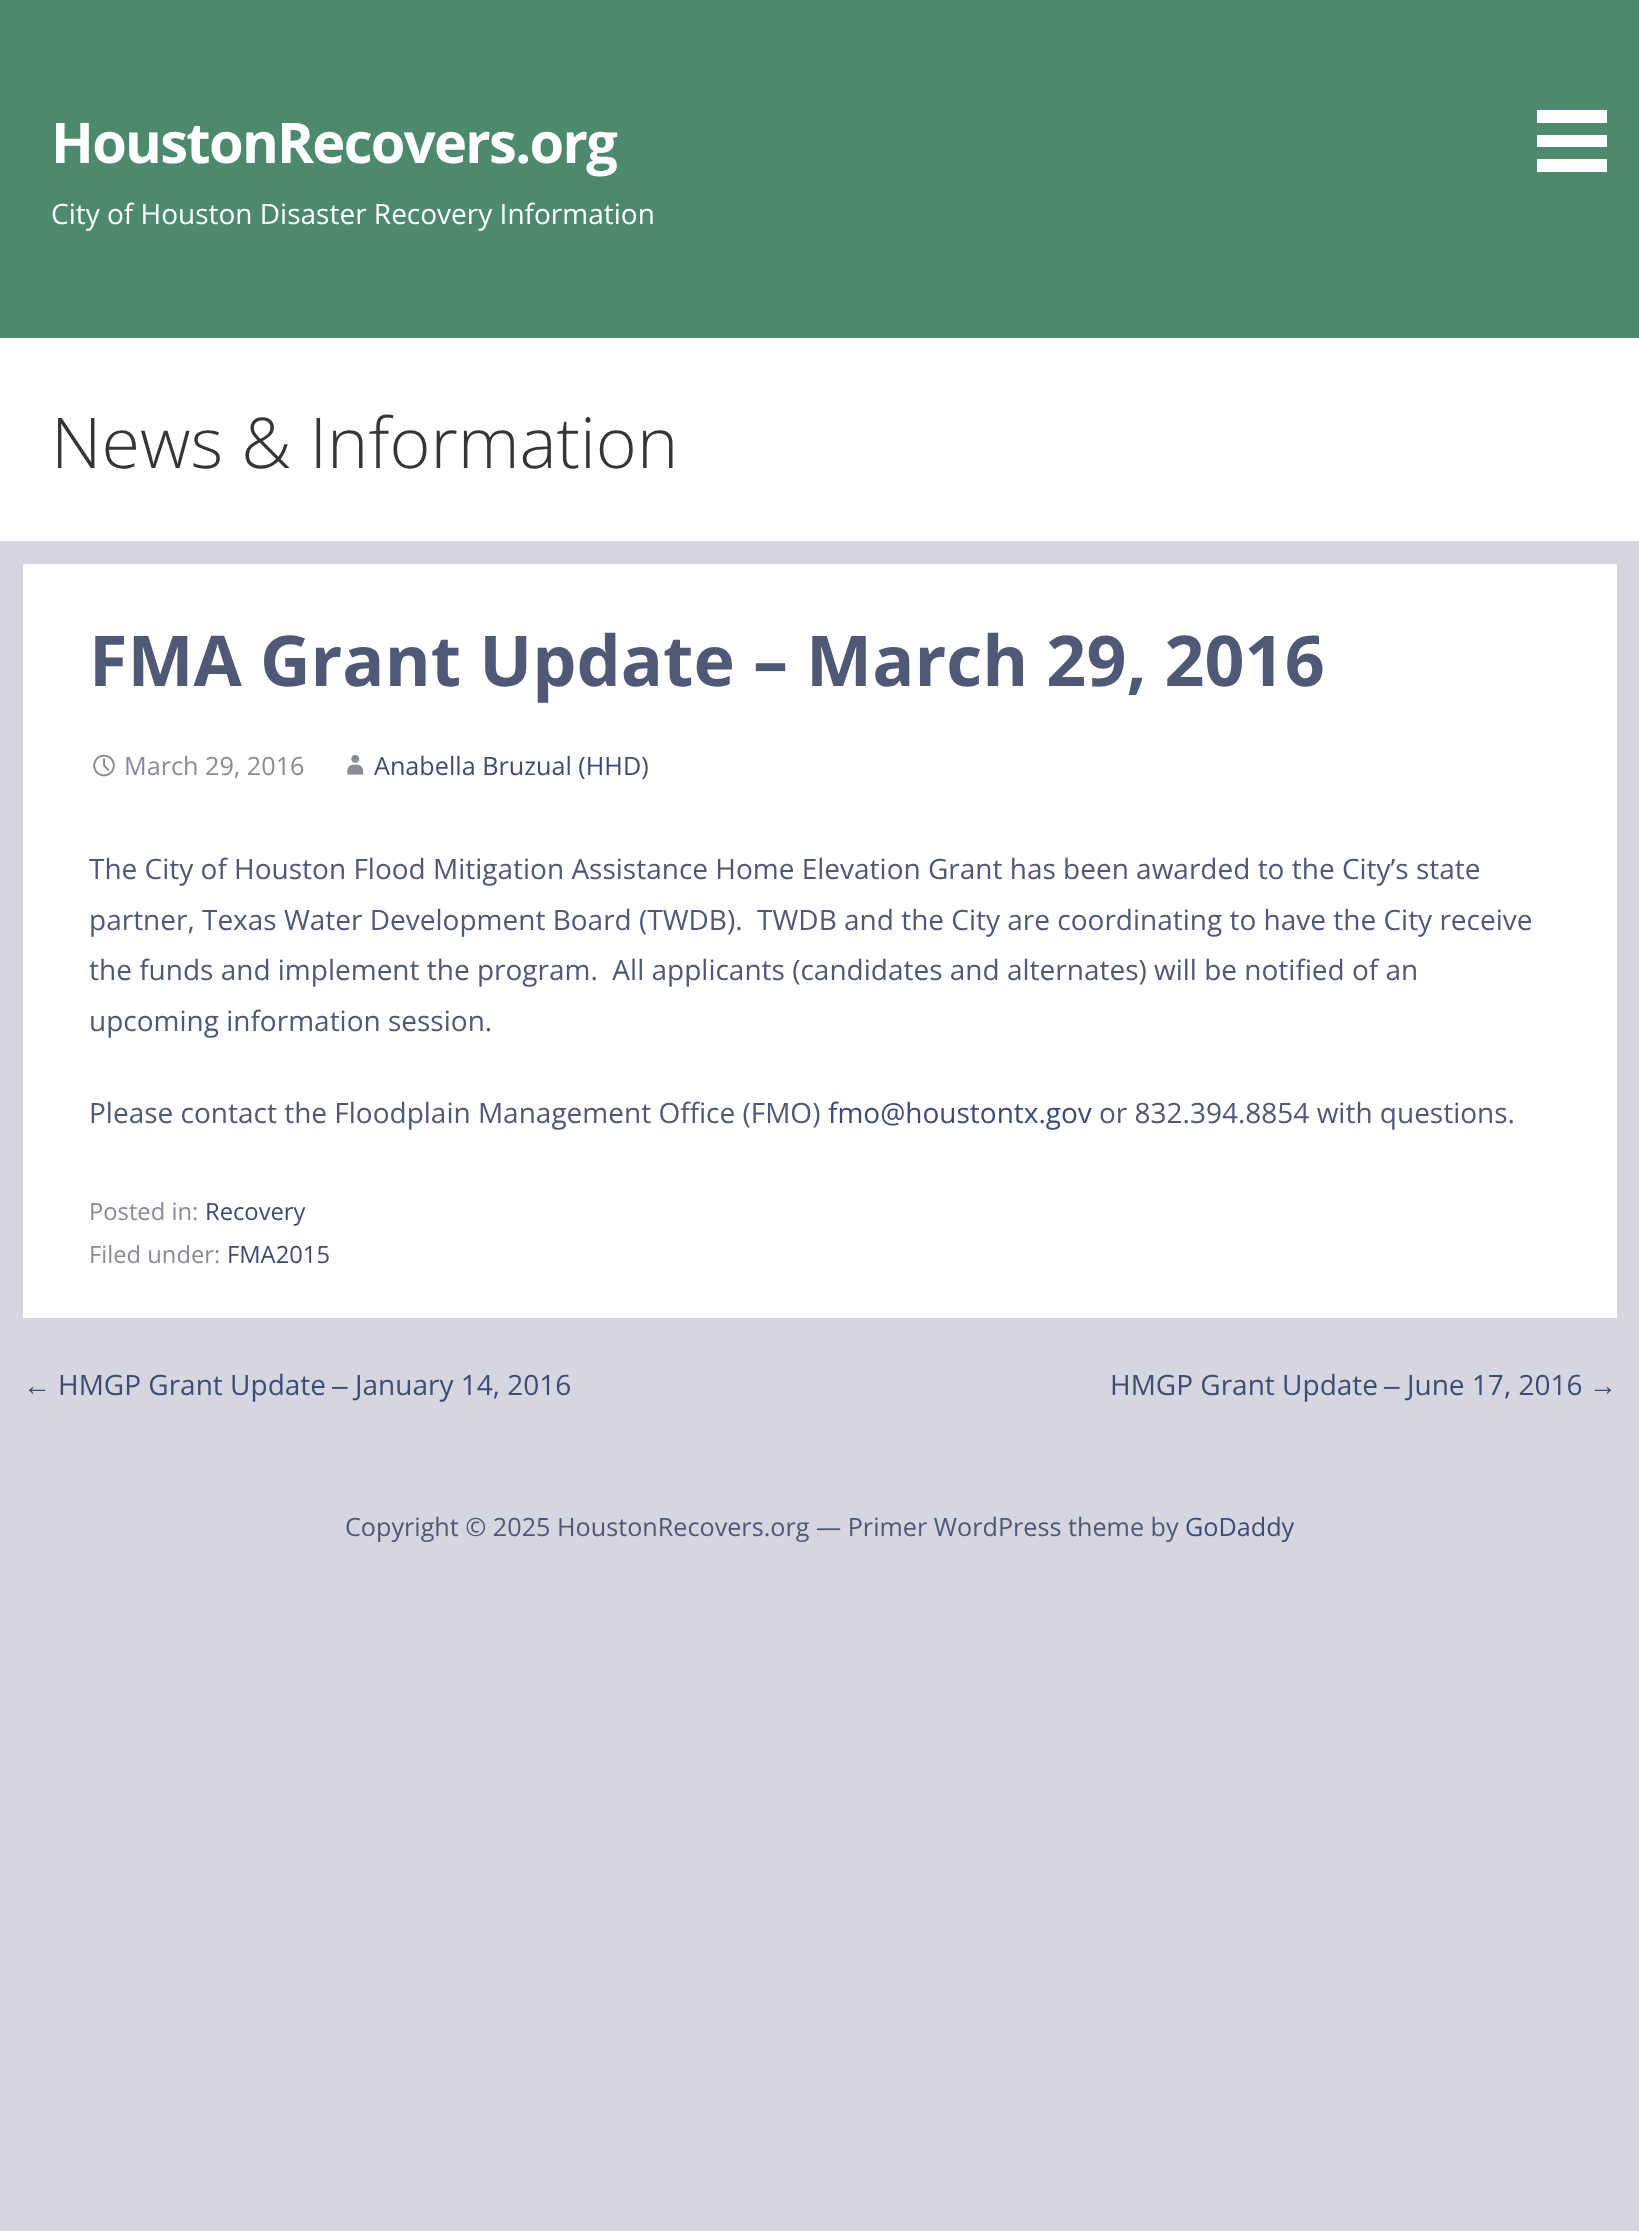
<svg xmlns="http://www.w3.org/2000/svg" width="1639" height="2231">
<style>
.a{font:bold 56px Open Sans;letter-spacing:-1.7px;fill:#fff}
.b{font:28px Open Sans;fill:#fff}
.c{font:300 70px Open Sans;fill:#353535}
.d{font:bold 70px Open Sans;fill:#4f5875}
.e{font:25.2px Open Sans;fill:#888c99}
.f{font:25.2px Open Sans;fill:#3e4c75}
.g{font:28px Open Sans;fill:#4f5875}
.h{font:28px Open Sans;fill:#3e4c75}
.i{font:23.75px Open Sans;fill:#888c99}
.j{font:23.75px Open Sans;fill:#3e4c75}
.k{font:28px Liberation Sans;fill:#3e4c75}
.l{font:25.2px Open Sans;fill:#4f5875}
</style>
<rect width="100%" height="100%" fill="#d5d6e0"/>
<path fill="#4d896d" d="M0 0h1639v338H0z"/>
<path fill="#fff" d="M1537 110h70v13H1537z"/>
<path fill="#fff" d="M1537 135h70v12H1537z"/>
<path fill="#fff" d="M1537 159h70v13H1537z"/>
<path fill="#fff" d="M0 338h1639v203H0z"/>
<path fill="#fff" d="M23 564h1594v754H23z"/>
<image href="1.png" x="93" y="754" width="22" height="23"/>
<image href="2.png" x="347" y="754" width="17" height="21"/>
<text class="a" x="51" y="163">HoustonRecovers.org</text>
<text class="b" x="51" y="224">City of Houston Disaster Recovery Information</text>
<text class="c" x="51" y="468">News &amp; Information</text>
<text class="d" x="89" y="686">FMA Grant Update – March 29, 2016</text>
<text class="e" x="124" y="775">March 29, 2016</text>
<text class="f" x="374" y="775">Anabella Bruzual (HHD)</text>
<text class="g" x="89" y="879">The City of Houston Flood Mitigation Assistance Home Elevation Grant has been awarded to the City’s state</text>
<text class="g" xml:space="preserve" x="89" y="930">partner, Texas Water Development Board (TWDB).  TWDB and the City are coordinating to have the City receive</text>
<text class="g" xml:space="preserve" x="89" y="980">the funds and implement the program.  All applicants (candidates and alternates) will be notified of an</text>
<text class="g" x="89" y="1031">upcoming information session.</text>
<text class="g" x="89" y="1123">Please contact the Floodplain Management Office (FMO)</text>
<text class="h" x="828" y="1123">fmo@houstontx.gov</text>
<text class="g" x="1099" y="1123">or 832.394.8854 with questions.</text>
<text class="i" x="89" y="1220">Posted in:</text>
<text class="j" x="205" y="1220">Recovery</text>
<text class="i" x="89" y="1263">Filed under:</text>
<text class="j" x="227" y="1263">FMA2015</text>
<text class="k" x="23" y="1395">←</text>
<text class="h" x="58" y="1395">HMGP Grant Update</text>
<text class="k" x="332" y="1395">–</text>
<text class="h" x="355" y="1395">January 14, 2016</text>
<text class="h" x="1110" y="1395">HMGP Grant Update</text>
<text class="k" x="1384" y="1395">–</text>
<text class="h" x="1407" y="1395">June 17, 2016</text>
<text class="k" x="1589" y="1395">→</text>
<text class="l" x="345" y="1536">Copyright © 2025 HoustonRecovers.org — Primer WordPress theme by</text>
<text class="f" x="1185" y="1536">GoDaddy</text>
</svg>
